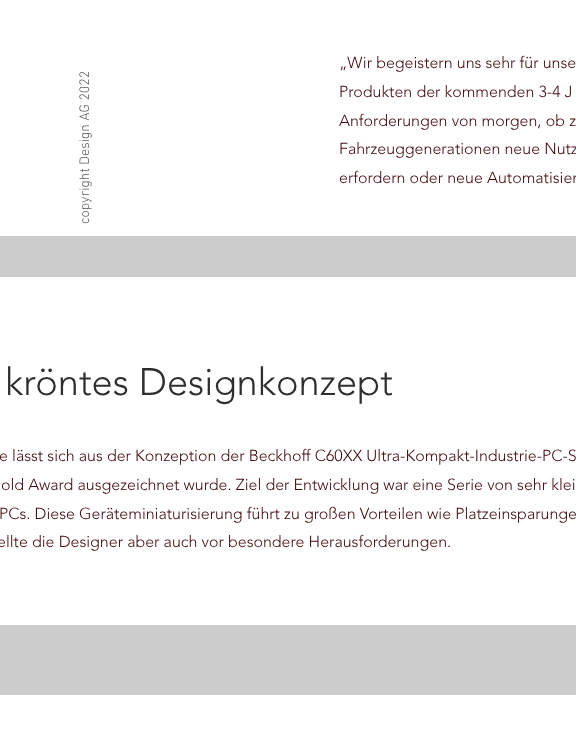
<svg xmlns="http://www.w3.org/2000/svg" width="576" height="742">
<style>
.a{font:300 14px 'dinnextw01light';fill:#605e5e}
.b{font:300 16px 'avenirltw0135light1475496';fill:#420a0c}
.c{font:300 38px 'avenirltw0135light1475496';fill:#2f2e2e}
</style>
<rect width="100%" height="100%" fill="#ccc"/>
<path fill="#fff" d="M0 0h576v236H0z"/>
<path fill="#fff" d="M0 277h576v348H0z"/>
<path fill="#fff" d="M0 695h576v47H0z"/>
<text class="a" x="89" y="224" transform="rotate(-90 89 224)">copyright Design AG 2022</text>
<text class="b" x="339" y="68">„Wir begeistern uns sehr für unse</text>
<text class="b" x="339" y="97">Produkten der kommenden 3-4 J</text>
<text class="b" x="339" y="126">Anforderungen von morgen, ob z</text>
<text class="b" x="339" y="154">Fahrzeuggenerationen neue Nutz</text>
<text class="b" x="339" y="183">erfordern oder neue Automatisier</text>
<text class="c" x="5" y="395">kröntes Designkonzept</text>
<text class="b" x="-1" y="461">e lässt sich aus der Konzeption der Beckhoff C60XX Ultra-Kompakt-Industrie-PC-S</text>
<text class="b" x="1" y="490">old Award ausgezeichnet wurde. Ziel der Entwicklung war eine Serie von sehr klei</text>
<text class="b" x="-1" y="519">PCs. Diese Geräteminiaturisierung führt zu großen Vorteilen wie Platzeinsparunge</text>
<text class="b" x="-3" y="547">ellte die Designer aber auch vor besondere Herausforderungen.</text>
</svg>
